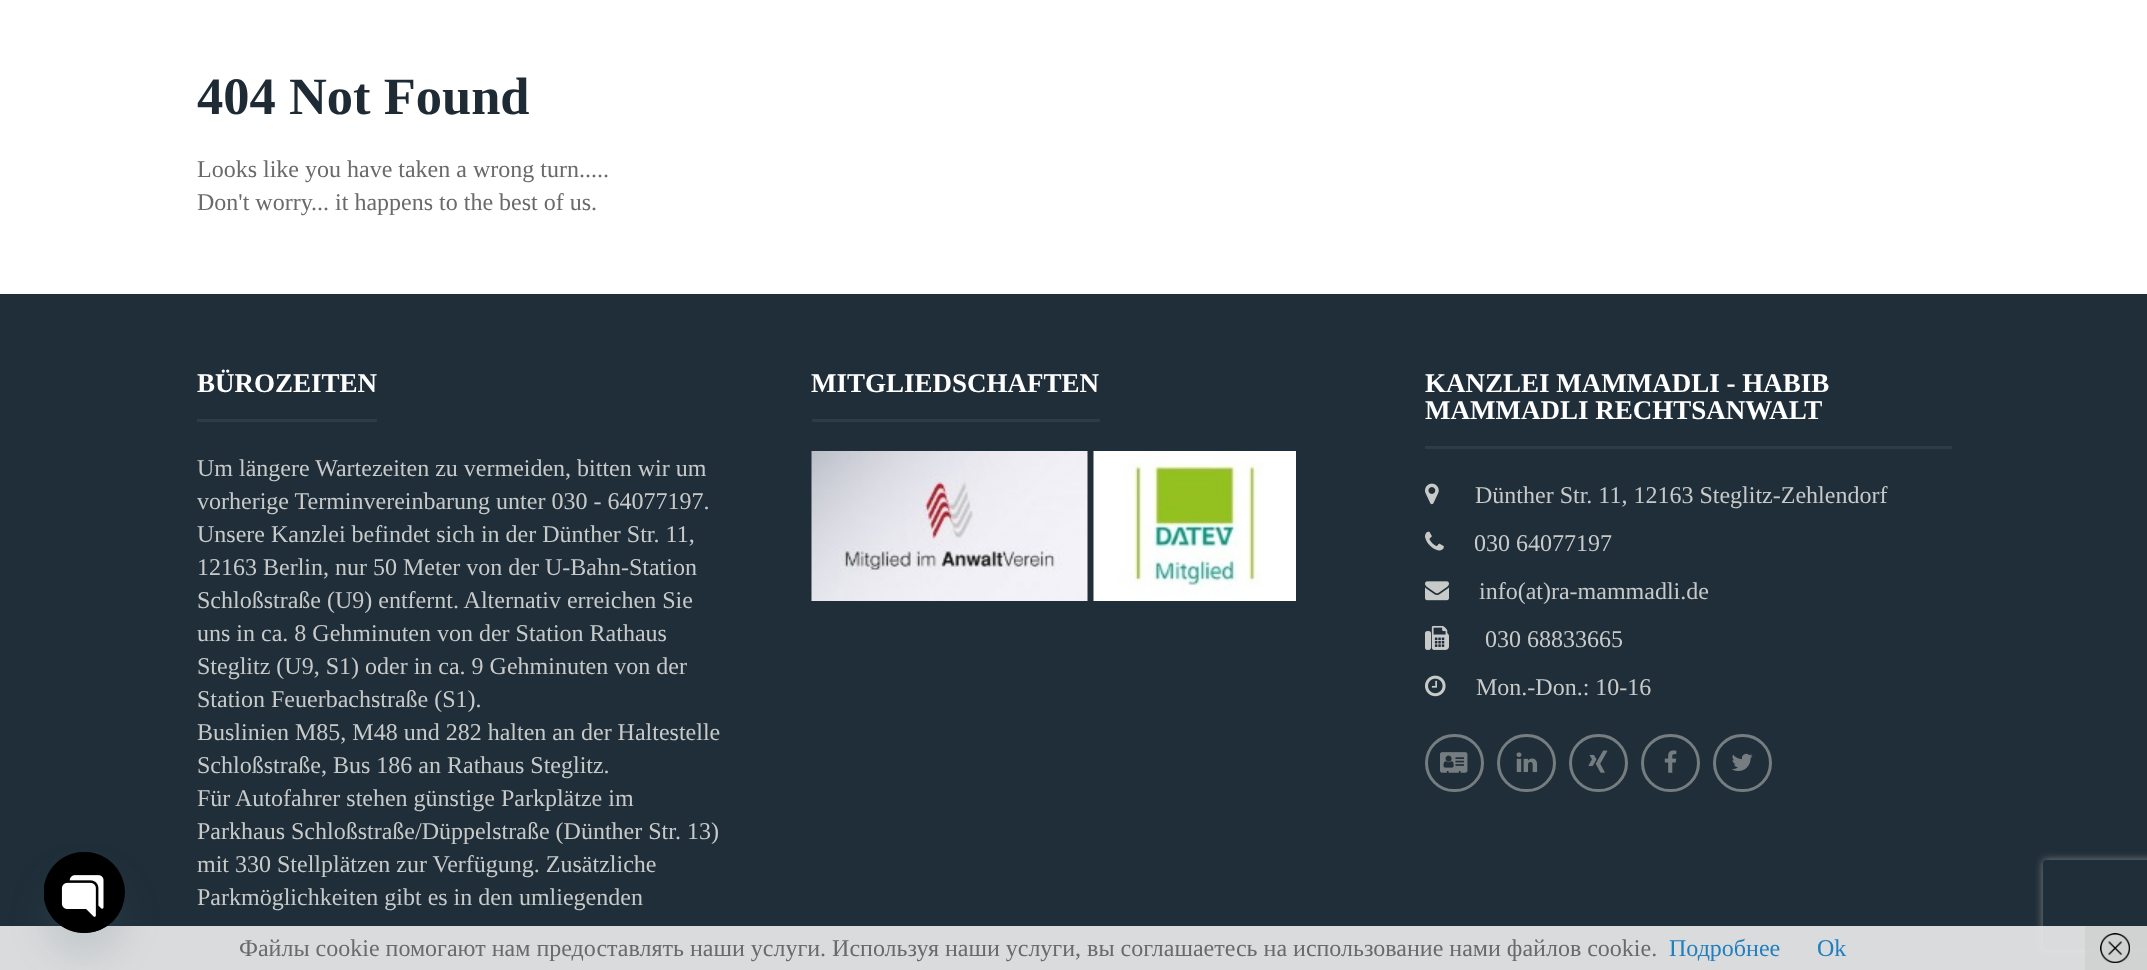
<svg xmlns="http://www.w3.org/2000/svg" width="2147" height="970">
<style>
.a{font:bold 52.5px Liberation Serif;fill:#1e2a34}
.b{font:24px Liberation Serif;fill:#6a6a6a}
.c{font:bold 27px Liberation Serif;fill:#fff}
.d{font:24px Liberation Serif;fill:#c8caca}
.e{font:24px Liberation Serif;fill:#207fbf}
</style>
<defs>
<clipPath id="clip1"><path d="M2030 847h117v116h-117zm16 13h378c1.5 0 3 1.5 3 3v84c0 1.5-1.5 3-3 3h-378c-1.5 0-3-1.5-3-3v-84c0-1.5 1.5-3 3-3z" clip-rule="evenodd"/></clipPath>
</defs>
<rect width="100%" height="100%" fill="#fff"/>
<path fill="#1f2e39" d="M0 294h2147v676H0z"/>
<g clip-path="url(#clip1)">
<rect fill="#808080" filter="blur(4px)" x="2043" y="860" width="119" height="90" rx="3"/>
</g>
<path fill="#eeeeeee6" d="M0 926h2147v44H0z"/>
<rect fill="#49687e29" filter="blur(18px)" x="44" y="876" width="81" height="81" rx="40.5"/>
<circle fill="#000" cx="84.5" cy="892.5" r="40.5"/>
<image href="1.png" x="44" y="852" width="63" height="81"/>
<path fill="#2d3c47" d="M197 419h180v3H197z"/>
<path fill="#2d3c47" d="M812 419h288v3H812z"/>
<image href="2.png" x="811" y="451" width="277" height="150"/>
<image href="3.png" x="1093" y="451" width="203" height="150"/>
<path fill="#2d3c47" d="M1425 446h527v3H1425z"/>
<image href="4.png" x="1425" y="483" width="14" height="22"/>
<image href="5.png" x="1425" y="531" width="19" height="20"/>
<image href="6.png" x="1425" y="581" width="24" height="20"/>
<image href="7.png" x="1425" y="625" width="24" height="25"/>
<image href="8.png" x="1425" y="675" width="21" height="22"/>
<rect fill="none" stroke="#767d80" stroke-width="3" x="1426.5" y="735.5" width="56" height="55" rx="27.5"/>
<image href="9.png" x="1440" y="752" width="28" height="21"/>
<rect fill="none" stroke="#767d80" stroke-width="3" x="1498.5" y="735.5" width="56" height="55" rx="27.5"/>
<image href="10.png" x="1516" y="752" width="22" height="21"/>
<rect fill="none" stroke="#767d80" stroke-width="3" x="1570.5" y="735.5" width="56" height="55" rx="27.5"/>
<image href="11.png" x="1588" y="750" width="20" height="23"/>
<rect fill="none" stroke="#767d80" stroke-width="3" x="1642.5" y="735.5" width="56" height="55" rx="27.5"/>
<image href="12.png" x="1664" y="750" width="13" height="23"/>
<rect fill="none" stroke="#767d80" stroke-width="3" x="1714.5" y="735.5" width="56" height="55" rx="27.5"/>
<image href="13.png" x="1732" y="753" width="21" height="18"/>
<path fill="#cccccc99" d="M2085 926h62v44H2085z"/>
<image href="14.png" x="2100" y="933" width="30" height="30"/>
<text class="a" x="197" y="114">404 Not Found</text>
<text class="b" x="197" y="177">Looks like you have taken a wrong turn.....</text>
<text class="b" x="197" y="210">Don't worry... it happens to the best of us.</text>
<text class="c" x="197" y="392">BÜROZEITEN</text>
<text class="d" x="197" y="476">Um längere Wartezeiten zu vermeiden, bitten wir um</text>
<text class="d" x="197" y="509">vorherige Terminvereinbarung unter 030 - 64077197.</text>
<text class="d" x="197" y="542">Unsere Kanzlei befindet sich in der Dünther Str. 11,</text>
<text class="d" x="197" y="575">12163 Berlin, nur 50 Meter von der U-Bahn-Station</text>
<text class="d" x="197" y="608">Schloßstraße (U9) entfernt. Alternativ erreichen Sie</text>
<text class="d" x="197" y="641">uns in ca. 8 Gehminuten von der Station Rathaus</text>
<text class="d" x="197" y="674">Steglitz (U9, S1) oder in ca. 9 Gehminuten von der</text>
<text class="d" x="197" y="707">Station Feuerbachstraße (S1).</text>
<text class="d" x="197" y="740">Buslinien M85, M48 und 282 halten an der Haltestelle</text>
<text class="d" x="197" y="773">Schloßstraße, Bus 186 an Rathaus Steglitz.</text>
<text class="d" x="197" y="806">Für Autofahrer stehen günstige Parkplätze im</text>
<text class="d" x="197" y="839">Parkhaus Schloßstraße/Düppelstraße (Dünther Str. 13)</text>
<text class="d" x="197" y="872">mit 330 Stellplätzen zur Verfügung. Zusätzliche</text>
<text class="d" x="197" y="905">Parkmöglichkeiten gibt es in den umliegenden</text>
<text class="c" x="811" y="392">MITGLIEDSCHAFTEN</text>
<text class="c" x="1425" y="392">KANZLEI MAMMADLI - HABIB</text>
<text class="c" x="1425" y="419">MAMMADLI RECHTSANWALT</text>
<text class="d" x="1475" y="503">Dünther Str. 11, 12163 Steglitz-Zehlendorf</text>
<text class="d" x="1474" y="551">030 64077197</text>
<text class="d" x="1479" y="599">info(at)ra-mammadli.de</text>
<text class="d" x="1485" y="647">030 68833665</text>
<text class="d" x="1476" y="695">Mon.-Don.: 10-16</text>
<text class="b" x="239" y="956">Файлы cookie помогают нам предоставлять наши услуги. Используя наши услуги, вы соглашаетесь на использование нами файлов cookie.</text>
<text class="e" x="1669" y="956">Подробнее</text>
<text class="e" x="1817" y="956">Ok</text>
</svg>
